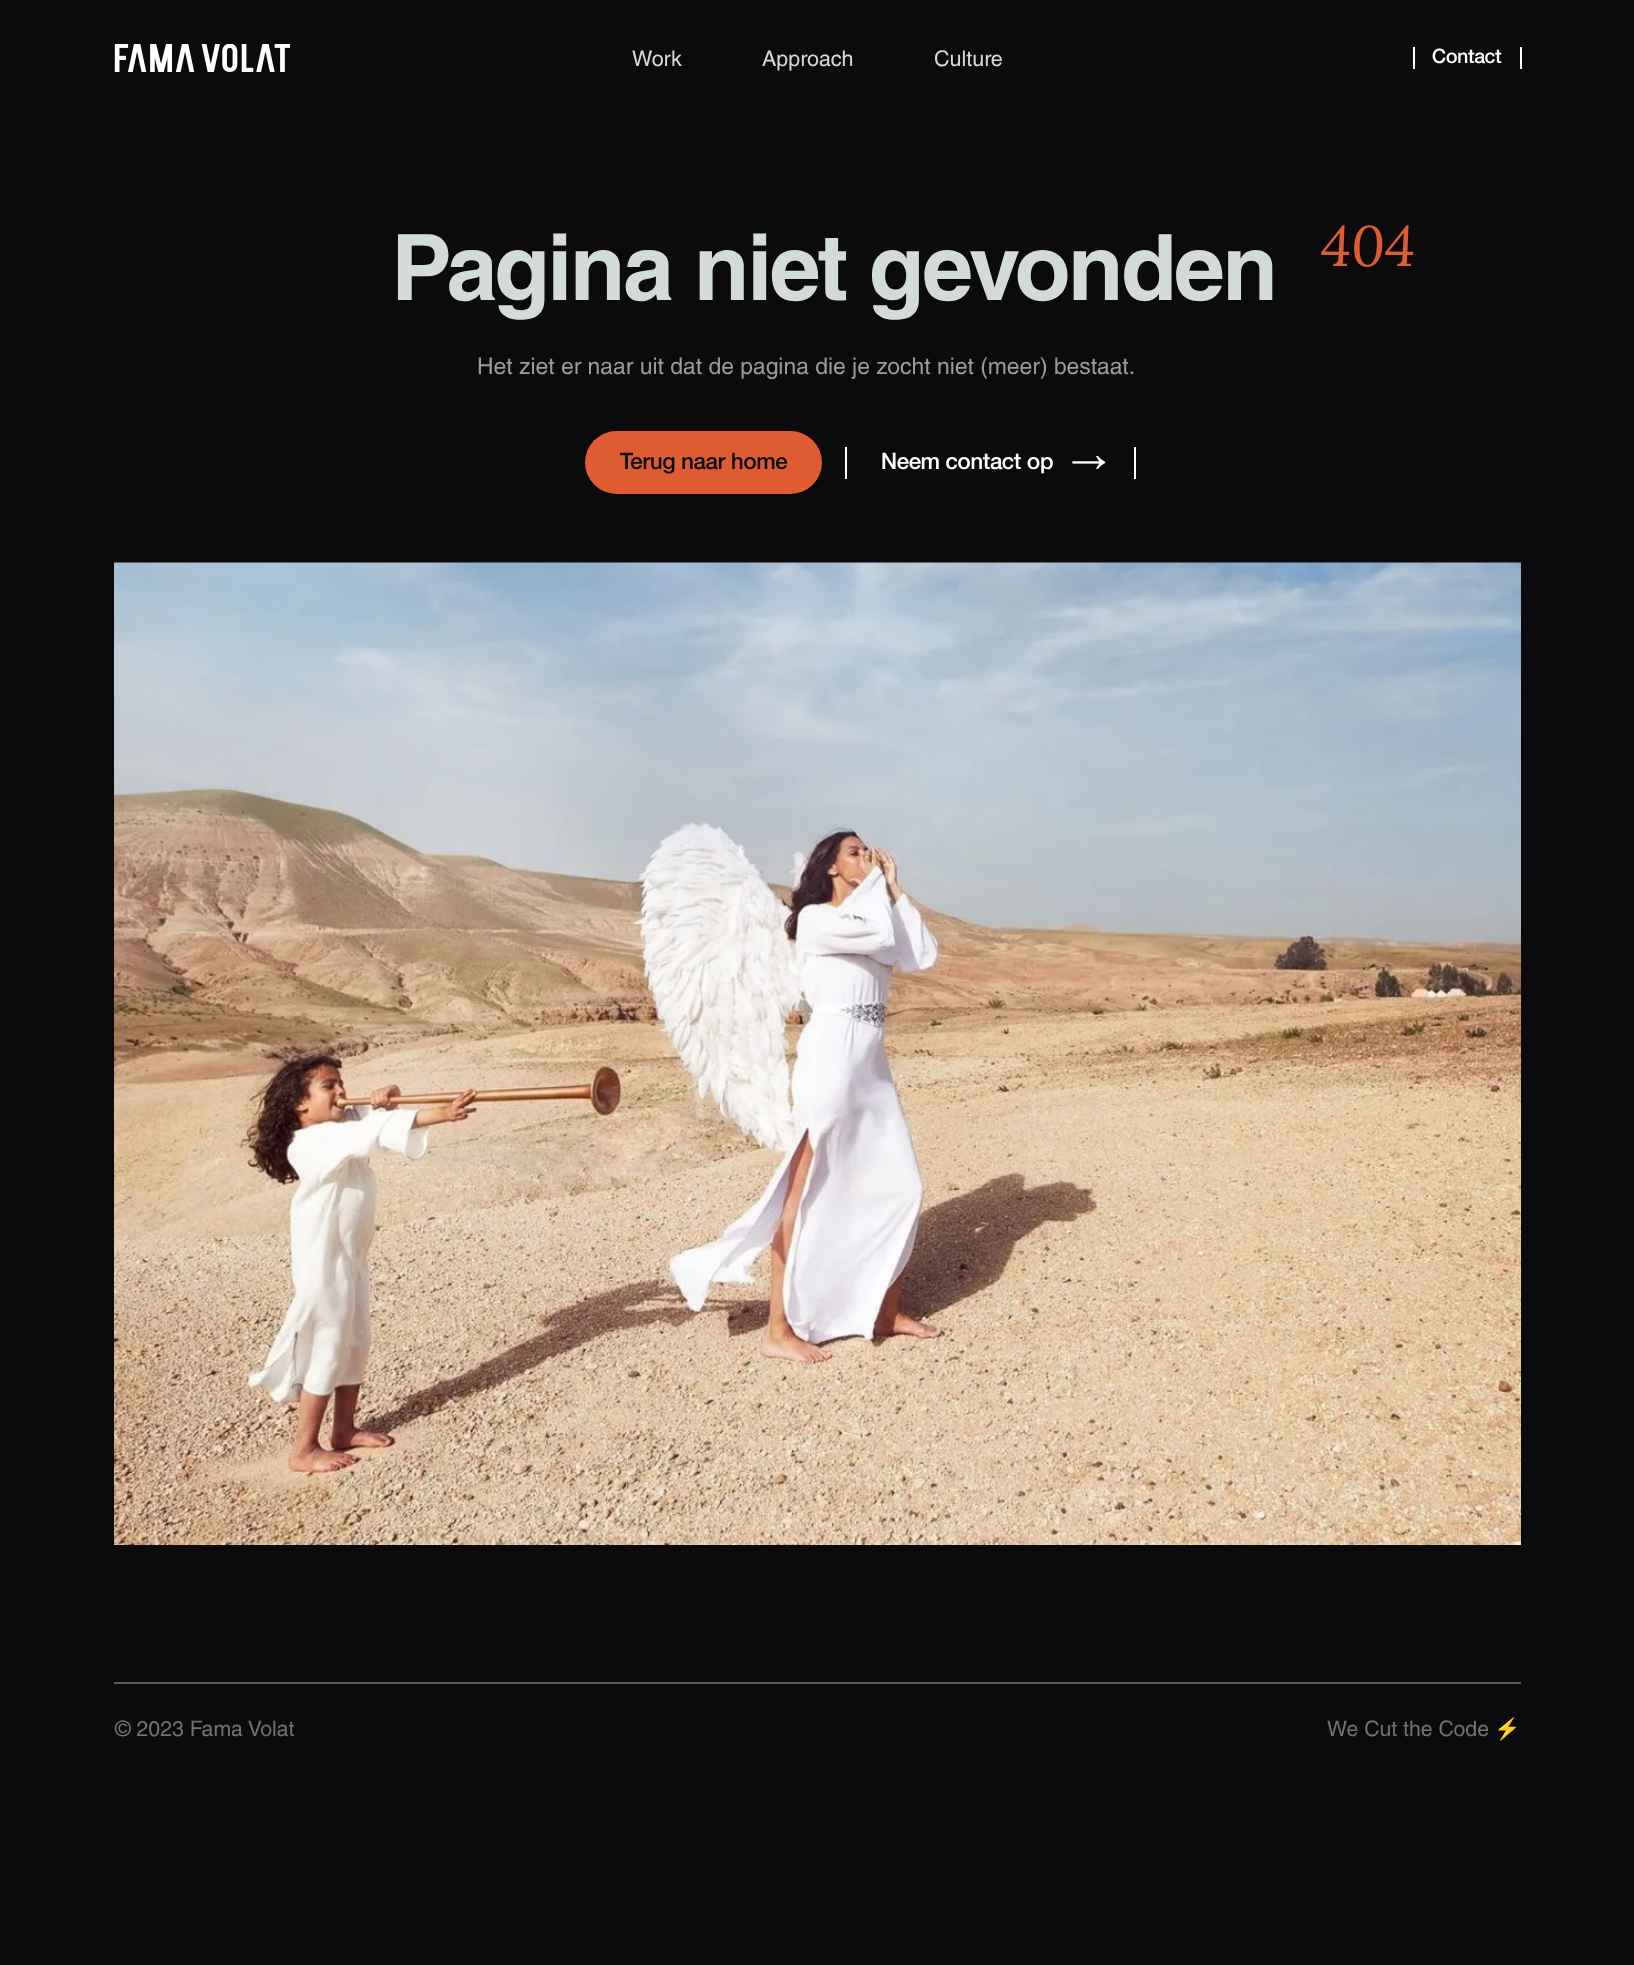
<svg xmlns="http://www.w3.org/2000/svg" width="1634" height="1965">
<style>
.a{font:21.5px Helvetica;fill:#d3dbd6}
.b{font:500 20px Helvetica;fill:#fff}
.c{font:bold 91.6px Helvetica;letter-spacing:-2.75px;fill:#d3dbd6}
.d{font:italic 57px Lora;fill:#df5b32}
.e{font:22.9px Helvetica;fill:#979d9a}
.f{font:500 22.9px Helvetica;fill:#0b0b0d}
.g{font:500 22.9px Helvetica;fill:#fff}
.h{font:21.25px Helvetica;fill:#6f7372}
.i{font:21.25px Noto Color Emoji;fill:#6f7372}
</style>
<rect width="100%" height="100%" fill="#0b0b0d"/>
<image href="1.png" x="114" y="44" width="176" height="28"/>
<path fill="#fff" d="M1520 47h2v22H1520z"/>
<path fill="#fff" d="M1413 47h2v22H1413z"/>
<rect fill="#df5b32" x="585" y="431" width="237" height="63" rx="31.5"/>
<path fill="#fff" d="M1134 447h2v32H1134z"/>
<path fill="#fff" d="M845 447h2v32H845z"/>
<image href="2.png" x="1072" y="455" width="34" height="14"/>
<image href="3.png" x="114" y="562" width="1407" height="983"/>
<path fill="#5b5e5d" d="M114 1682h1407v2H114z"/>
<text class="a" x="632" y="66">Work</text>
<text class="a" x="762" y="66">Approach</text>
<text class="a" x="934" y="66">Culture</text>
<text class="b" x="1432" y="63">Contact</text>
<text class="c" x="391" y="300">Pagina niet gevonden</text>
<text class="d" x="1321" y="266">404</text>
<text class="e" x="477" y="374">Het ziet er naar uit dat de pagina die je zocht niet (meer) bestaat.</text>
<text class="f" x="620" y="469">Terug naar home</text>
<text class="g" x="881" y="469">Neem contact op</text>
<text class="h" x="115" y="1736">© 2023 Fama Volat</text>
<text class="h" x="1327" y="1736">We Cut the Code</text>
<text class="i" x="1494" y="1736">⚡️</text>
</svg>
